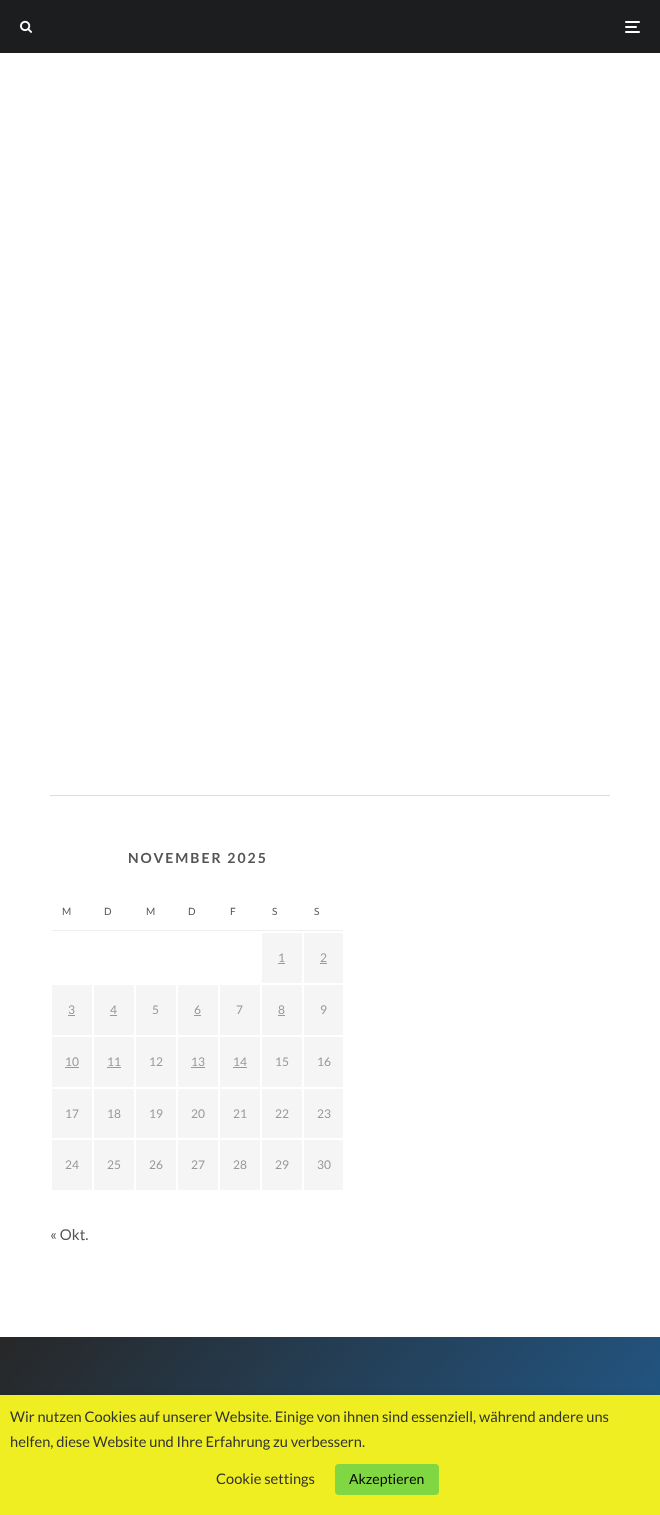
<svg xmlns="http://www.w3.org/2000/svg" width="660" height="1515">
<style>
.a{font:bold 14px Lato;letter-spacing:2px;fill:#555}
.b{font:10px Lato;fill:#555}
.c{font:12px Lato;fill:#999}
.d{font:15px Lato;fill:#555}
.e{font:14.65px Lato;fill:#333}
.f{font:14px Lato;fill:#000}
</style>
<defs>
<linearGradient id="g1" gradientUnits="userSpaceOnUse" x1="-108" y1="1466" x2="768" y2="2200"><stop offset="0" stop-color="#272727"/><stop offset="0.8" stop-color="#1e73be"/></linearGradient>
</defs>
<rect width="100%" height="100%" fill="#fff"/>
<path fill="#1c1d1e" d="M0 0h660v53H0z"/>
<image href="1.png" x="20" y="20" width="12" height="13"/>
<rect fill="#fff" x="625" y="26" width="12" height="2" rx="1"/>
<rect fill="#fff" x="625" y="21" width="15" height="2" rx="1"/>
<rect fill="#fff" x="625" y="31" width="15" height="2" rx="1"/>
<path fill="#ddd" d="M50 795h560v1H50z"/>
<path fill="#eee" d="M52 930h291v1H52z"/>
<path fill="#f5f5f5" d="M262 933h40v50H262z"/>
<path fill="#999" d="M278 963h7v1H278z"/>
<path fill="#f5f5f5" d="M304 933h39v50H304z"/>
<path fill="#999" d="M320 963h7v1H320z"/>
<path fill="#f5f5f5" d="M52 985h40v50H52z"/>
<path fill="#999" d="M68 1015h7v1H68z"/>
<path fill="#f5f5f5" d="M94 985h40v50H94z"/>
<path fill="#999" d="M110 1015h7v1H110z"/>
<path fill="#f5f5f5" d="M136 985h40v50H136z"/>
<path fill="#f5f5f5" d="M178 985h40v50H178z"/>
<path fill="#999" d="M194 1015h7v1H194z"/>
<path fill="#f5f5f5" d="M220 985h40v50H220z"/>
<path fill="#f5f5f5" d="M262 985h40v50H262z"/>
<path fill="#999" d="M278 1015h7v1H278z"/>
<path fill="#f5f5f5" d="M304 985h39v50H304z"/>
<path fill="#f5f5f5" d="M52 1037h40v50H52z"/>
<path fill="#999" d="M65 1067h14v1H65z"/>
<path fill="#f5f5f5" d="M94 1037h40v50H94z"/>
<path fill="#999" d="M107 1067h14v1H107z"/>
<path fill="#f5f5f5" d="M136 1037h40v50H136z"/>
<path fill="#f5f5f5" d="M178 1037h40v50H178z"/>
<path fill="#999" d="M191 1067h14v1H191z"/>
<path fill="#f5f5f5" d="M220 1037h40v50H220z"/>
<path fill="#999" d="M233 1067h14v1H233z"/>
<path fill="#f5f5f5" d="M262 1037h40v50H262z"/>
<path fill="#f5f5f5" d="M304 1037h39v50H304z"/>
<path fill="#f5f5f5" d="M52 1089h40v49H52z"/>
<path fill="#f5f5f5" d="M94 1089h40v49H94z"/>
<path fill="#f5f5f5" d="M136 1089h40v49H136z"/>
<path fill="#f5f5f5" d="M178 1089h40v49H178z"/>
<path fill="#f5f5f5" d="M220 1089h40v49H220z"/>
<path fill="#f5f5f5" d="M262 1089h40v49H262z"/>
<path fill="#f5f5f5" d="M304 1089h39v49H304z"/>
<path fill="#f5f5f5" d="M52 1140h40v50H52z"/>
<path fill="#f5f5f5" d="M94 1140h40v50H94z"/>
<path fill="#f5f5f5" d="M136 1140h40v50H136z"/>
<path fill="#f5f5f5" d="M178 1140h40v50H178z"/>
<path fill="#f5f5f5" d="M220 1140h40v50H220z"/>
<path fill="#f5f5f5" d="M262 1140h40v50H262z"/>
<path fill="#f5f5f5" d="M304 1140h39v50H304z"/>
<path fill="url(#g1)" d="M0 1337h660v58H0z"/>
<path fill="#00000080" filter="blur(5px)" d="M0 1400h660v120H0z"/>
<path fill="#ee2" d="M0 1395h660v120H0z"/>
<rect fill="#81d742" x="335" y="1464" width="104" height="31" rx="4"/>
<text class="a" x="128" y="863">NOVEMBER 2025</text>
<text class="b" x="62" y="915">M</text>
<text class="b" x="104" y="915">D</text>
<text class="b" x="146" y="915">M</text>
<text class="b" x="188" y="915">D</text>
<text class="b" x="230" y="915">F</text>
<text class="b" x="272" y="915">S</text>
<text class="b" x="314" y="915">S</text>
<text class="c" x="278" y="962">1</text>
<text class="c" x="320" y="962">2</text>
<text class="c" x="68" y="1014">3</text>
<text class="c" x="110" y="1014">4</text>
<text class="c" x="152" y="1014">5</text>
<text class="c" x="194" y="1014">6</text>
<text class="c" x="236" y="1014">7</text>
<text class="c" x="278" y="1014">8</text>
<text class="c" x="320" y="1014">9</text>
<text class="c" x="65" y="1066">10</text>
<text class="c" x="107" y="1066">11</text>
<text class="c" x="149" y="1066">12</text>
<text class="c" x="191" y="1066">13</text>
<text class="c" x="233" y="1066">14</text>
<text class="c" x="275" y="1066">15</text>
<text class="c" x="317" y="1066">16</text>
<text class="c" x="65" y="1118">17</text>
<text class="c" x="107" y="1118">18</text>
<text class="c" x="149" y="1118">19</text>
<text class="c" x="191" y="1118">20</text>
<text class="c" x="233" y="1118">21</text>
<text class="c" x="275" y="1118">22</text>
<text class="c" x="317" y="1118">23</text>
<text class="c" x="65" y="1169">24</text>
<text class="c" x="107" y="1169">25</text>
<text class="c" x="149" y="1169">26</text>
<text class="c" x="191" y="1169">27</text>
<text class="c" x="233" y="1169">28</text>
<text class="c" x="275" y="1169">29</text>
<text class="c" x="317" y="1169">30</text>
<text class="d" x="50" y="1240">« Okt.</text>
<text class="e" x="10" y="1422">Wir nutzen Cookies auf unserer Website. Einige von ihnen sind essenziell, während andere uns</text>
<text class="e" x="10" y="1447">helfen, diese Website und Ihre Erfahrung zu verbessern.</text>
<text class="e" x="216" y="1484">Cookie settings</text>
<text class="f" x="349" y="1484">Akzeptieren</text>
</svg>
